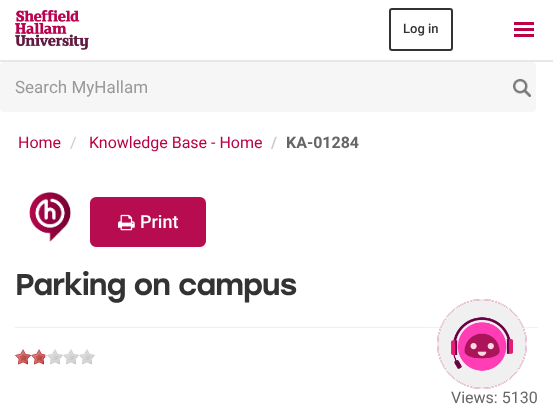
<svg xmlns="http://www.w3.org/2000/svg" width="553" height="415">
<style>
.a{font:500 13px Roboto;fill:#333}
.b{font:17px Roboto;fill:#999}
.c{font:16px Roboto;fill:#ba0046}
.d{font:16px Roboto;fill:#ccc}
.e{font:bold 16px Roboto;fill:#ccc}
.f{font:bold 16px Roboto;fill:#666}
.g{font:500 18px Roboto;fill:#fff}
.h{font:500 30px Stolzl;letter-spacing:-1px;fill:#333}
.i{font:16px Roboto;fill:#666}
</style>
<rect width="100%" height="100%" fill="#fff"/>
<image href="1.png" x="15" y="10" width="74" height="40"/>
<rect fill="none" stroke="#333" stroke-width="2" x="390" y="9" width="62" height="41" rx="2"/>
<path fill="#ba0046" d="M514 28h20v3H514z"/>
<path fill="#ba0046" d="M514 22h20v3H514z"/>
<path fill="#ba0046" d="M514 34h20v3H514z"/>
<path fill="#e7e7e7" d="M0 60h553v2H0z"/>
<rect fill="#f6f6f6" y="62" width="536" height="50" rx="4"/>
<image href="2.png" x="513" y="79" width="18" height="18"/>
<path fill="#eee" d="M15 327h523v1H15z"/>
<image href="3.png" x="29" y="192" width="42" height="50"/>
<rect fill="#b70d50" stroke="#b70d50" stroke-width="2" x="91" y="198" width="114" height="48" rx="5"/>
<image href="4.png" x="118" y="214" width="17" height="17"/>
<rect fill="#ffffffbf" filter="blur(12px)" x="437" y="299" width="90" height="90" rx="45"/>
<circle fill="#f0f0f0" cx="482" cy="344" r="45"/>
<image href="5.png" x="451" y="317" width="62" height="54"/>
<circle fill="none" stroke="#ac145a" cx="482" cy="344" r="44.5"/>
<circle fill="none" stroke="#fff" cx="482" cy="344" r="44.5"/>
<image href="6.png" x="45" y="349" width="50" height="16"/>
<image href="7.png" x="15" y="349" width="30" height="16"/>
<text class="a" x="403" y="33">Log in</text>
<text class="b" x="15" y="93">Search MyHallam</text>
<text class="c" x="18" y="148">Home</text>
<text class="d" x="70" y="148">/</text>
<text class="c" x="89" y="148">Knowledge Base - Home</text>
<text class="e" x="271" y="148">/</text>
<text class="f" x="286" y="148">KA-01284</text>
<text class="g" x="140" y="228">Print</text>
<text class="h" x="15" y="295">Parking on campus</text>
<text class="i" x="451" y="403">Views: 5130</text>
</svg>
